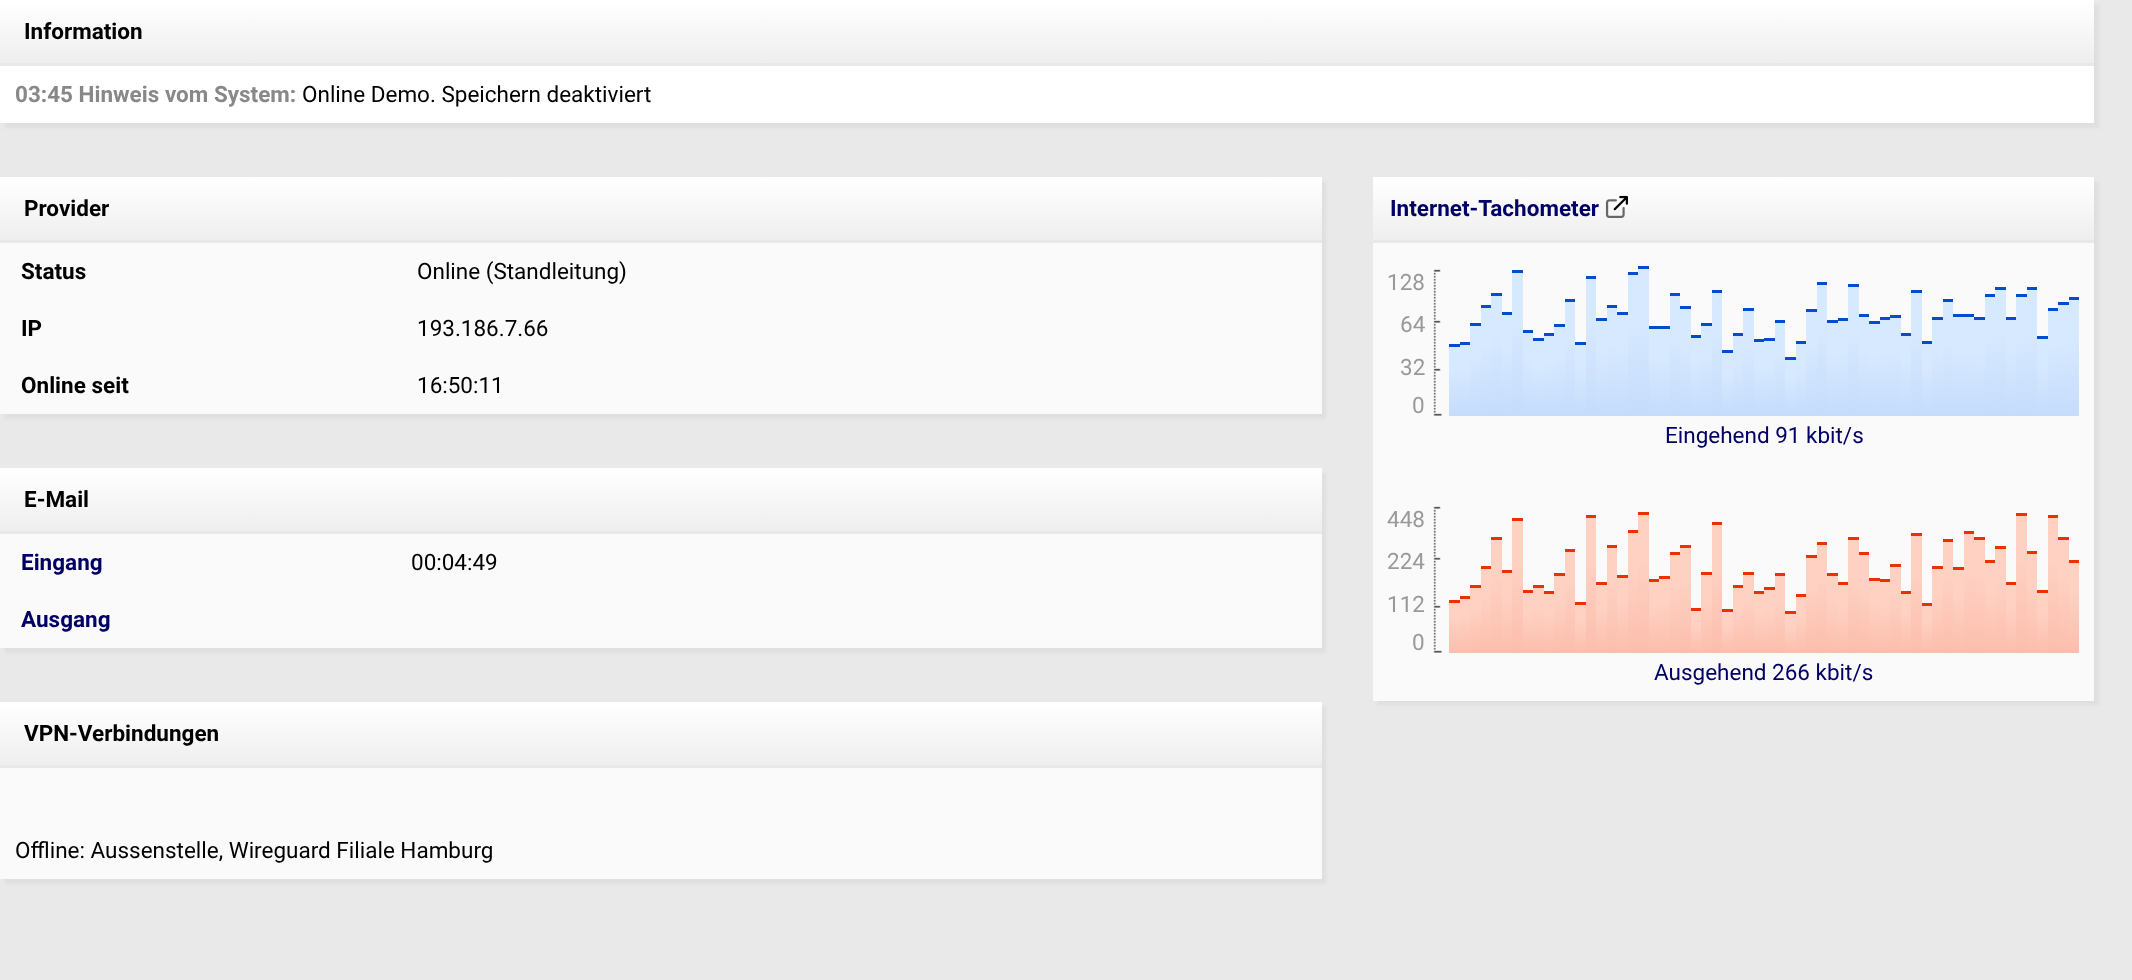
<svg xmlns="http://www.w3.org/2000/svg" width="2132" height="980">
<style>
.a{font:bold 22.5px Roboto;fill:#000}
.b{font:bold 22.5px Roboto;fill:#888}
.c{font:22.5px Roboto;fill:#000}
.d{font:bold 22.5px Roboto;fill:#006}
.e{font:22.5px Roboto;fill:#999}
.f{font:22.5px Roboto;fill:#006}
</style>
<defs>
<linearGradient id="g1" gradientUnits="userSpaceOnUse" x1="1047" y1="0" x2="1047" y2="63"><stop offset="0.04" stop-color="#fff"/><stop offset="1" stop-color="#eee"/></linearGradient>
<linearGradient id="g2" gradientUnits="userSpaceOnUse" x1="661" y1="177" x2="661" y2="240"><stop offset="0.04" stop-color="#fff"/><stop offset="1" stop-color="#eee"/></linearGradient>
<linearGradient id="g3" gradientUnits="userSpaceOnUse" x1="661" y1="468" x2="661" y2="531"><stop offset="0.04" stop-color="#fff"/><stop offset="1" stop-color="#eee"/></linearGradient>
<linearGradient id="g4" gradientUnits="userSpaceOnUse" x1="661" y1="702" x2="661" y2="765"><stop offset="0.04" stop-color="#fff"/><stop offset="1" stop-color="#eee"/></linearGradient>
<linearGradient id="g5" gradientUnits="userSpaceOnUse" x1="1691" y1="177" x2="1691" y2="240"><stop offset="0.04" stop-color="#fff"/><stop offset="1" stop-color="#eee"/></linearGradient>
<linearGradient id="g6" gradientUnits="userSpaceOnUse" x1="2052" y1="177" x2="2052" y2="240"><stop offset="0.04" stop-color="#fff"/><stop offset="1" stop-color="#eee"/></linearGradient>
<linearGradient id="g7" gradientUnits="userSpaceOnUse" x1="1486" y1="308" x2="1486" y2="416"><stop offset="0.32" stop-color="#d7e9ff"/><stop offset="1" stop-color="#c5dcfb"/></linearGradient>
<linearGradient id="g8" gradientUnits="userSpaceOnUse" x1="1496" y1="296" x2="1496" y2="416"><stop offset="0.32" stop-color="#d7e9ff"/><stop offset="1" stop-color="#c5dcfb"/></linearGradient>
<linearGradient id="g9" gradientUnits="userSpaceOnUse" x1="1507" y1="315" x2="1507" y2="416"><stop offset="0.32" stop-color="#d7e9ff"/><stop offset="1" stop-color="#c5dcfb"/></linearGradient>
<linearGradient id="g10" gradientUnits="userSpaceOnUse" x1="1517" y1="273" x2="1517" y2="416"><stop offset="0.32" stop-color="#d7e9ff"/><stop offset="1" stop-color="#c5dcfb"/></linearGradient>
<linearGradient id="g11" gradientUnits="userSpaceOnUse" x1="1570" y1="302" x2="1570" y2="416"><stop offset="0.32" stop-color="#d7e9ff"/><stop offset="1" stop-color="#c5dcfb"/></linearGradient>
<linearGradient id="g12" gradientUnits="userSpaceOnUse" x1="1591" y1="279" x2="1591" y2="416"><stop offset="0.32" stop-color="#d7e9ff"/><stop offset="1" stop-color="#c5dcfb"/></linearGradient>
<linearGradient id="g13" gradientUnits="userSpaceOnUse" x1="1612" y1="308" x2="1612" y2="416"><stop offset="0.32" stop-color="#d7e9ff"/><stop offset="1" stop-color="#c5dcfb"/></linearGradient>
<linearGradient id="g14" gradientUnits="userSpaceOnUse" x1="1622" y1="315" x2="1622" y2="416"><stop offset="0.32" stop-color="#d7e9ff"/><stop offset="1" stop-color="#c5dcfb"/></linearGradient>
<linearGradient id="g15" gradientUnits="userSpaceOnUse" x1="1633" y1="275" x2="1633" y2="416"><stop offset="0.32" stop-color="#d7e9ff"/><stop offset="1" stop-color="#c5dcfb"/></linearGradient>
<linearGradient id="g16" gradientUnits="userSpaceOnUse" x1="1643" y1="269" x2="1643" y2="416"><stop offset="0.32" stop-color="#d7e9ff"/><stop offset="1" stop-color="#c5dcfb"/></linearGradient>
<linearGradient id="g17" gradientUnits="userSpaceOnUse" x1="1675" y1="296" x2="1675" y2="416"><stop offset="0.32" stop-color="#d7e9ff"/><stop offset="1" stop-color="#c5dcfb"/></linearGradient>
<linearGradient id="g18" gradientUnits="userSpaceOnUse" x1="1685" y1="309" x2="1685" y2="416"><stop offset="0.32" stop-color="#d7e9ff"/><stop offset="1" stop-color="#c5dcfb"/></linearGradient>
<linearGradient id="g19" gradientUnits="userSpaceOnUse" x1="1717" y1="293" x2="1717" y2="416"><stop offset="0.32" stop-color="#d7e9ff"/><stop offset="1" stop-color="#c5dcfb"/></linearGradient>
<linearGradient id="g20" gradientUnits="userSpaceOnUse" x1="1748" y1="311" x2="1748" y2="416"><stop offset="0.32" stop-color="#d7e9ff"/><stop offset="1" stop-color="#c5dcfb"/></linearGradient>
<linearGradient id="g21" gradientUnits="userSpaceOnUse" x1="1811" y1="312" x2="1811" y2="416"><stop offset="0.32" stop-color="#d7e9ff"/><stop offset="1" stop-color="#c5dcfb"/></linearGradient>
<linearGradient id="g22" gradientUnits="userSpaceOnUse" x1="1822" y1="285" x2="1822" y2="416"><stop offset="0.32" stop-color="#d7e9ff"/><stop offset="1" stop-color="#c5dcfb"/></linearGradient>
<linearGradient id="g23" gradientUnits="userSpaceOnUse" x1="1853" y1="287" x2="1853" y2="416"><stop offset="0.32" stop-color="#d7e9ff"/><stop offset="1" stop-color="#c5dcfb"/></linearGradient>
<linearGradient id="g24" gradientUnits="userSpaceOnUse" x1="1864" y1="317" x2="1864" y2="416"><stop offset="0.32" stop-color="#d7e9ff"/><stop offset="1" stop-color="#c5dcfb"/></linearGradient>
<linearGradient id="g25" gradientUnits="userSpaceOnUse" x1="1885" y1="320" x2="1885" y2="416"><stop offset="0.32" stop-color="#d7e9ff"/><stop offset="1" stop-color="#c5dcfb"/></linearGradient>
<linearGradient id="g26" gradientUnits="userSpaceOnUse" x1="1895" y1="318" x2="1895" y2="416"><stop offset="0.32" stop-color="#d7e9ff"/><stop offset="1" stop-color="#c5dcfb"/></linearGradient>
<linearGradient id="g27" gradientUnits="userSpaceOnUse" x1="1916" y1="293" x2="1916" y2="416"><stop offset="0.32" stop-color="#d7e9ff"/><stop offset="1" stop-color="#c5dcfb"/></linearGradient>
<linearGradient id="g28" gradientUnits="userSpaceOnUse" x1="1937" y1="320" x2="1937" y2="416"><stop offset="0.32" stop-color="#d7e9ff"/><stop offset="1" stop-color="#c5dcfb"/></linearGradient>
<linearGradient id="g29" gradientUnits="userSpaceOnUse" x1="1948" y1="302" x2="1948" y2="416"><stop offset="0.32" stop-color="#d7e9ff"/><stop offset="1" stop-color="#c5dcfb"/></linearGradient>
<linearGradient id="g30" gradientUnits="userSpaceOnUse" x1="1958" y1="317" x2="1958" y2="416"><stop offset="0.32" stop-color="#d7e9ff"/><stop offset="1" stop-color="#c5dcfb"/></linearGradient>
<linearGradient id="g31" gradientUnits="userSpaceOnUse" x1="1990" y1="297" x2="1990" y2="416"><stop offset="0.32" stop-color="#d7e9ff"/><stop offset="1" stop-color="#c5dcfb"/></linearGradient>
<linearGradient id="g32" gradientUnits="userSpaceOnUse" x1="2000" y1="290" x2="2000" y2="416"><stop offset="0.32" stop-color="#d7e9ff"/><stop offset="1" stop-color="#c5dcfb"/></linearGradient>
<linearGradient id="g33" gradientUnits="userSpaceOnUse" x1="2021" y1="297" x2="2021" y2="416"><stop offset="0.32" stop-color="#d7e9ff"/><stop offset="1" stop-color="#c5dcfb"/></linearGradient>
<linearGradient id="g34" gradientUnits="userSpaceOnUse" x1="2032" y1="290" x2="2032" y2="416"><stop offset="0.32" stop-color="#d7e9ff"/><stop offset="1" stop-color="#c5dcfb"/></linearGradient>
<linearGradient id="g35" gradientUnits="userSpaceOnUse" x1="2053" y1="311" x2="2053" y2="416"><stop offset="0.32" stop-color="#d7e9ff"/><stop offset="1" stop-color="#c5dcfb"/></linearGradient>
<linearGradient id="g36" gradientUnits="userSpaceOnUse" x1="2063" y1="305" x2="2063" y2="416"><stop offset="0.32" stop-color="#d7e9ff"/><stop offset="1" stop-color="#c5dcfb"/></linearGradient>
<linearGradient id="g37" gradientUnits="userSpaceOnUse" x1="2074" y1="300" x2="2074" y2="416"><stop offset="0.32" stop-color="#d7e9ff"/><stop offset="1" stop-color="#c5dcfb"/></linearGradient>
<linearGradient id="g38" gradientUnits="userSpaceOnUse" x1="1475" y1="326" x2="1475" y2="416"><stop offset="0.32" stop-color="#d7e9ff"/><stop offset="1" stop-color="#c5dcfb"/></linearGradient>
<linearGradient id="g39" gradientUnits="userSpaceOnUse" x1="1559" y1="327" x2="1559" y2="416"><stop offset="0.32" stop-color="#d7e9ff"/><stop offset="1" stop-color="#c5dcfb"/></linearGradient>
<linearGradient id="g40" gradientUnits="userSpaceOnUse" x1="1601" y1="321" x2="1601" y2="416"><stop offset="0.32" stop-color="#d7e9ff"/><stop offset="1" stop-color="#c5dcfb"/></linearGradient>
<linearGradient id="g41" gradientUnits="userSpaceOnUse" x1="1654" y1="329" x2="1654" y2="416"><stop offset="0.32" stop-color="#d7e9ff"/><stop offset="1" stop-color="#c5dcfb"/></linearGradient>
<linearGradient id="g42" gradientUnits="userSpaceOnUse" x1="1706" y1="326" x2="1706" y2="416"><stop offset="0.32" stop-color="#d7e9ff"/><stop offset="1" stop-color="#c5dcfb"/></linearGradient>
<linearGradient id="g43" gradientUnits="userSpaceOnUse" x1="1780" y1="323" x2="1780" y2="416"><stop offset="0.32" stop-color="#d7e9ff"/><stop offset="1" stop-color="#c5dcfb"/></linearGradient>
<linearGradient id="g44" gradientUnits="userSpaceOnUse" x1="1832" y1="323" x2="1832" y2="416"><stop offset="0.32" stop-color="#d7e9ff"/><stop offset="1" stop-color="#c5dcfb"/></linearGradient>
<linearGradient id="g45" gradientUnits="userSpaceOnUse" x1="1843" y1="321" x2="1843" y2="416"><stop offset="0.32" stop-color="#d7e9ff"/><stop offset="1" stop-color="#c5dcfb"/></linearGradient>
<linearGradient id="g46" gradientUnits="userSpaceOnUse" x1="1874" y1="324" x2="1874" y2="416"><stop offset="0.32" stop-color="#d7e9ff"/><stop offset="1" stop-color="#c5dcfb"/></linearGradient>
<linearGradient id="g47" gradientUnits="userSpaceOnUse" x1="1969" y1="317" x2="1969" y2="416"><stop offset="0.32" stop-color="#d7e9ff"/><stop offset="1" stop-color="#c5dcfb"/></linearGradient>
<linearGradient id="g48" gradientUnits="userSpaceOnUse" x1="1979" y1="320" x2="1979" y2="416"><stop offset="0.32" stop-color="#d7e9ff"/><stop offset="1" stop-color="#c5dcfb"/></linearGradient>
<linearGradient id="g49" gradientUnits="userSpaceOnUse" x1="2011" y1="320" x2="2011" y2="416"><stop offset="0.32" stop-color="#d7e9ff"/><stop offset="1" stop-color="#c5dcfb"/></linearGradient>
<linearGradient id="g50" gradientUnits="userSpaceOnUse" x1="1454" y1="347" x2="1454" y2="416"><stop offset="0.32" stop-color="#d7e9ff"/><stop offset="1" stop-color="#c5dcfb"/></linearGradient>
<linearGradient id="g51" gradientUnits="userSpaceOnUse" x1="1465" y1="345" x2="1465" y2="416"><stop offset="0.32" stop-color="#d7e9ff"/><stop offset="1" stop-color="#c5dcfb"/></linearGradient>
<linearGradient id="g52" gradientUnits="userSpaceOnUse" x1="1528" y1="333" x2="1528" y2="416"><stop offset="0.32" stop-color="#d7e9ff"/><stop offset="1" stop-color="#c5dcfb"/></linearGradient>
<linearGradient id="g53" gradientUnits="userSpaceOnUse" x1="1538" y1="341" x2="1538" y2="416"><stop offset="0.32" stop-color="#d7e9ff"/><stop offset="1" stop-color="#c5dcfb"/></linearGradient>
<linearGradient id="g54" gradientUnits="userSpaceOnUse" x1="1549" y1="336" x2="1549" y2="416"><stop offset="0.32" stop-color="#d7e9ff"/><stop offset="1" stop-color="#c5dcfb"/></linearGradient>
<linearGradient id="g55" gradientUnits="userSpaceOnUse" x1="1580" y1="345" x2="1580" y2="416"><stop offset="0.32" stop-color="#d7e9ff"/><stop offset="1" stop-color="#c5dcfb"/></linearGradient>
<linearGradient id="g56" gradientUnits="userSpaceOnUse" x1="1664" y1="329" x2="1664" y2="416"><stop offset="0.32" stop-color="#d7e9ff"/><stop offset="1" stop-color="#c5dcfb"/></linearGradient>
<linearGradient id="g57" gradientUnits="userSpaceOnUse" x1="1696" y1="338" x2="1696" y2="416"><stop offset="0.32" stop-color="#d7e9ff"/><stop offset="1" stop-color="#c5dcfb"/></linearGradient>
<linearGradient id="g58" gradientUnits="userSpaceOnUse" x1="1727" y1="353" x2="1727" y2="416"><stop offset="0.32" stop-color="#d7e9ff"/><stop offset="1" stop-color="#c5dcfb"/></linearGradient>
<linearGradient id="g59" gradientUnits="userSpaceOnUse" x1="1738" y1="336" x2="1738" y2="416"><stop offset="0.32" stop-color="#d7e9ff"/><stop offset="1" stop-color="#c5dcfb"/></linearGradient>
<linearGradient id="g60" gradientUnits="userSpaceOnUse" x1="1759" y1="342" x2="1759" y2="416"><stop offset="0.32" stop-color="#d7e9ff"/><stop offset="1" stop-color="#c5dcfb"/></linearGradient>
<linearGradient id="g61" gradientUnits="userSpaceOnUse" x1="1769" y1="341" x2="1769" y2="416"><stop offset="0.32" stop-color="#d7e9ff"/><stop offset="1" stop-color="#c5dcfb"/></linearGradient>
<linearGradient id="g62" gradientUnits="userSpaceOnUse" x1="1790" y1="360" x2="1790" y2="416"><stop offset="0.32" stop-color="#d7e9ff"/><stop offset="1" stop-color="#c5dcfb"/></linearGradient>
<linearGradient id="g63" gradientUnits="userSpaceOnUse" x1="1801" y1="344" x2="1801" y2="416"><stop offset="0.32" stop-color="#d7e9ff"/><stop offset="1" stop-color="#c5dcfb"/></linearGradient>
<linearGradient id="g64" gradientUnits="userSpaceOnUse" x1="1906" y1="336" x2="1906" y2="416"><stop offset="0.32" stop-color="#d7e9ff"/><stop offset="1" stop-color="#c5dcfb"/></linearGradient>
<linearGradient id="g65" gradientUnits="userSpaceOnUse" x1="1927" y1="344" x2="1927" y2="416"><stop offset="0.32" stop-color="#d7e9ff"/><stop offset="1" stop-color="#c5dcfb"/></linearGradient>
<linearGradient id="g66" gradientUnits="userSpaceOnUse" x1="2042" y1="339" x2="2042" y2="416"><stop offset="0.32" stop-color="#d7e9ff"/><stop offset="1" stop-color="#c5dcfb"/></linearGradient>
<linearGradient id="g67" gradientUnits="userSpaceOnUse" x1="1454" y1="603" x2="1454" y2="653"><stop offset="0.32" stop-color="#fed1c3"/><stop offset="1" stop-color="#fcbeac"/></linearGradient>
<linearGradient id="g68" gradientUnits="userSpaceOnUse" x1="1465" y1="599" x2="1465" y2="653"><stop offset="0.32" stop-color="#fed1c3"/><stop offset="1" stop-color="#fcbeac"/></linearGradient>
<linearGradient id="g69" gradientUnits="userSpaceOnUse" x1="1475" y1="588" x2="1475" y2="653"><stop offset="0.32" stop-color="#fed1c3"/><stop offset="1" stop-color="#fcbeac"/></linearGradient>
<linearGradient id="g70" gradientUnits="userSpaceOnUse" x1="1486" y1="569" x2="1486" y2="653"><stop offset="0.32" stop-color="#fed1c3"/><stop offset="1" stop-color="#fcbeac"/></linearGradient>
<linearGradient id="g71" gradientUnits="userSpaceOnUse" x1="1496" y1="540" x2="1496" y2="653"><stop offset="0.32" stop-color="#fed1c3"/><stop offset="1" stop-color="#fcbeac"/></linearGradient>
<linearGradient id="g72" gradientUnits="userSpaceOnUse" x1="1507" y1="573" x2="1507" y2="653"><stop offset="0.32" stop-color="#fed1c3"/><stop offset="1" stop-color="#fcbeac"/></linearGradient>
<linearGradient id="g73" gradientUnits="userSpaceOnUse" x1="1517" y1="521" x2="1517" y2="653"><stop offset="0.32" stop-color="#fed1c3"/><stop offset="1" stop-color="#fcbeac"/></linearGradient>
<linearGradient id="g74" gradientUnits="userSpaceOnUse" x1="1528" y1="593" x2="1528" y2="653"><stop offset="0.32" stop-color="#fed1c3"/><stop offset="1" stop-color="#fcbeac"/></linearGradient>
<linearGradient id="g75" gradientUnits="userSpaceOnUse" x1="1538" y1="588" x2="1538" y2="653"><stop offset="0.32" stop-color="#fed1c3"/><stop offset="1" stop-color="#fcbeac"/></linearGradient>
<linearGradient id="g76" gradientUnits="userSpaceOnUse" x1="1549" y1="594" x2="1549" y2="653"><stop offset="0.32" stop-color="#fed1c3"/><stop offset="1" stop-color="#fcbeac"/></linearGradient>
<linearGradient id="g77" gradientUnits="userSpaceOnUse" x1="1559" y1="576" x2="1559" y2="653"><stop offset="0.32" stop-color="#fed1c3"/><stop offset="1" stop-color="#fcbeac"/></linearGradient>
<linearGradient id="g78" gradientUnits="userSpaceOnUse" x1="1570" y1="552" x2="1570" y2="653"><stop offset="0.32" stop-color="#fed1c3"/><stop offset="1" stop-color="#fcbeac"/></linearGradient>
<linearGradient id="g79" gradientUnits="userSpaceOnUse" x1="1580" y1="605" x2="1580" y2="653"><stop offset="0.32" stop-color="#fed1c3"/><stop offset="1" stop-color="#fcbeac"/></linearGradient>
<linearGradient id="g80" gradientUnits="userSpaceOnUse" x1="1591" y1="518" x2="1591" y2="653"><stop offset="0.32" stop-color="#fed1c3"/><stop offset="1" stop-color="#fcbeac"/></linearGradient>
<linearGradient id="g81" gradientUnits="userSpaceOnUse" x1="1601" y1="585" x2="1601" y2="653"><stop offset="0.32" stop-color="#fed1c3"/><stop offset="1" stop-color="#fcbeac"/></linearGradient>
<linearGradient id="g82" gradientUnits="userSpaceOnUse" x1="1612" y1="548" x2="1612" y2="653"><stop offset="0.32" stop-color="#fed1c3"/><stop offset="1" stop-color="#fcbeac"/></linearGradient>
<linearGradient id="g83" gradientUnits="userSpaceOnUse" x1="1622" y1="578" x2="1622" y2="653"><stop offset="0.32" stop-color="#fed1c3"/><stop offset="1" stop-color="#fcbeac"/></linearGradient>
<linearGradient id="g84" gradientUnits="userSpaceOnUse" x1="1633" y1="533" x2="1633" y2="653"><stop offset="0.32" stop-color="#fed1c3"/><stop offset="1" stop-color="#fcbeac"/></linearGradient>
<linearGradient id="g85" gradientUnits="userSpaceOnUse" x1="1643" y1="515" x2="1643" y2="653"><stop offset="0.32" stop-color="#fed1c3"/><stop offset="1" stop-color="#fcbeac"/></linearGradient>
<linearGradient id="g86" gradientUnits="userSpaceOnUse" x1="1654" y1="582" x2="1654" y2="653"><stop offset="0.32" stop-color="#fed1c3"/><stop offset="1" stop-color="#fcbeac"/></linearGradient>
<linearGradient id="g87" gradientUnits="userSpaceOnUse" x1="1664" y1="579" x2="1664" y2="653"><stop offset="0.32" stop-color="#fed1c3"/><stop offset="1" stop-color="#fcbeac"/></linearGradient>
<linearGradient id="g88" gradientUnits="userSpaceOnUse" x1="1675" y1="555" x2="1675" y2="653"><stop offset="0.32" stop-color="#fed1c3"/><stop offset="1" stop-color="#fcbeac"/></linearGradient>
<linearGradient id="g89" gradientUnits="userSpaceOnUse" x1="1685" y1="548" x2="1685" y2="653"><stop offset="0.32" stop-color="#fed1c3"/><stop offset="1" stop-color="#fcbeac"/></linearGradient>
<linearGradient id="g90" gradientUnits="userSpaceOnUse" x1="1696" y1="611" x2="1696" y2="653"><stop offset="0.32" stop-color="#fed1c3"/><stop offset="1" stop-color="#fcbeac"/></linearGradient>
<linearGradient id="g91" gradientUnits="userSpaceOnUse" x1="1706" y1="575" x2="1706" y2="653"><stop offset="0.32" stop-color="#fed1c3"/><stop offset="1" stop-color="#fcbeac"/></linearGradient>
<linearGradient id="g92" gradientUnits="userSpaceOnUse" x1="1717" y1="525" x2="1717" y2="653"><stop offset="0.32" stop-color="#fed1c3"/><stop offset="1" stop-color="#fcbeac"/></linearGradient>
<linearGradient id="g93" gradientUnits="userSpaceOnUse" x1="1727" y1="612" x2="1727" y2="653"><stop offset="0.32" stop-color="#fed1c3"/><stop offset="1" stop-color="#fcbeac"/></linearGradient>
<linearGradient id="g94" gradientUnits="userSpaceOnUse" x1="1738" y1="588" x2="1738" y2="653"><stop offset="0.32" stop-color="#fed1c3"/><stop offset="1" stop-color="#fcbeac"/></linearGradient>
<linearGradient id="g95" gradientUnits="userSpaceOnUse" x1="1748" y1="575" x2="1748" y2="653"><stop offset="0.32" stop-color="#fed1c3"/><stop offset="1" stop-color="#fcbeac"/></linearGradient>
<linearGradient id="g96" gradientUnits="userSpaceOnUse" x1="1759" y1="594" x2="1759" y2="653"><stop offset="0.32" stop-color="#fed1c3"/><stop offset="1" stop-color="#fcbeac"/></linearGradient>
<linearGradient id="g97" gradientUnits="userSpaceOnUse" x1="1769" y1="590" x2="1769" y2="653"><stop offset="0.32" stop-color="#fed1c3"/><stop offset="1" stop-color="#fcbeac"/></linearGradient>
<linearGradient id="g98" gradientUnits="userSpaceOnUse" x1="1780" y1="576" x2="1780" y2="653"><stop offset="0.32" stop-color="#fed1c3"/><stop offset="1" stop-color="#fcbeac"/></linearGradient>
<linearGradient id="g99" gradientUnits="userSpaceOnUse" x1="1790" y1="614" x2="1790" y2="653"><stop offset="0.32" stop-color="#fed1c3"/><stop offset="1" stop-color="#fcbeac"/></linearGradient>
<linearGradient id="g100" gradientUnits="userSpaceOnUse" x1="1801" y1="597" x2="1801" y2="653"><stop offset="0.32" stop-color="#fed1c3"/><stop offset="1" stop-color="#fcbeac"/></linearGradient>
<linearGradient id="g101" gradientUnits="userSpaceOnUse" x1="1811" y1="558" x2="1811" y2="653"><stop offset="0.32" stop-color="#fed1c3"/><stop offset="1" stop-color="#fcbeac"/></linearGradient>
<linearGradient id="g102" gradientUnits="userSpaceOnUse" x1="1822" y1="545" x2="1822" y2="653"><stop offset="0.32" stop-color="#fed1c3"/><stop offset="1" stop-color="#fcbeac"/></linearGradient>
<linearGradient id="g103" gradientUnits="userSpaceOnUse" x1="1832" y1="576" x2="1832" y2="653"><stop offset="0.32" stop-color="#fed1c3"/><stop offset="1" stop-color="#fcbeac"/></linearGradient>
<linearGradient id="g104" gradientUnits="userSpaceOnUse" x1="1843" y1="585" x2="1843" y2="653"><stop offset="0.32" stop-color="#fed1c3"/><stop offset="1" stop-color="#fcbeac"/></linearGradient>
<linearGradient id="g105" gradientUnits="userSpaceOnUse" x1="1853" y1="540" x2="1853" y2="653"><stop offset="0.32" stop-color="#fed1c3"/><stop offset="1" stop-color="#fcbeac"/></linearGradient>
<linearGradient id="g106" gradientUnits="userSpaceOnUse" x1="1864" y1="555" x2="1864" y2="653"><stop offset="0.32" stop-color="#fed1c3"/><stop offset="1" stop-color="#fcbeac"/></linearGradient>
<linearGradient id="g107" gradientUnits="userSpaceOnUse" x1="1874" y1="581" x2="1874" y2="653"><stop offset="0.32" stop-color="#fed1c3"/><stop offset="1" stop-color="#fcbeac"/></linearGradient>
<linearGradient id="g108" gradientUnits="userSpaceOnUse" x1="1885" y1="582" x2="1885" y2="653"><stop offset="0.32" stop-color="#fed1c3"/><stop offset="1" stop-color="#fcbeac"/></linearGradient>
<linearGradient id="g109" gradientUnits="userSpaceOnUse" x1="1895" y1="567" x2="1895" y2="653"><stop offset="0.32" stop-color="#fed1c3"/><stop offset="1" stop-color="#fcbeac"/></linearGradient>
<linearGradient id="g110" gradientUnits="userSpaceOnUse" x1="1906" y1="594" x2="1906" y2="653"><stop offset="0.32" stop-color="#fed1c3"/><stop offset="1" stop-color="#fcbeac"/></linearGradient>
<linearGradient id="g111" gradientUnits="userSpaceOnUse" x1="1916" y1="536" x2="1916" y2="653"><stop offset="0.32" stop-color="#fed1c3"/><stop offset="1" stop-color="#fcbeac"/></linearGradient>
<linearGradient id="g112" gradientUnits="userSpaceOnUse" x1="1927" y1="606" x2="1927" y2="653"><stop offset="0.32" stop-color="#fed1c3"/><stop offset="1" stop-color="#fcbeac"/></linearGradient>
<linearGradient id="g113" gradientUnits="userSpaceOnUse" x1="1937" y1="569" x2="1937" y2="653"><stop offset="0.32" stop-color="#fed1c3"/><stop offset="1" stop-color="#fcbeac"/></linearGradient>
<linearGradient id="g114" gradientUnits="userSpaceOnUse" x1="1948" y1="542" x2="1948" y2="653"><stop offset="0.32" stop-color="#fed1c3"/><stop offset="1" stop-color="#fcbeac"/></linearGradient>
<linearGradient id="g115" gradientUnits="userSpaceOnUse" x1="1958" y1="570" x2="1958" y2="653"><stop offset="0.32" stop-color="#fed1c3"/><stop offset="1" stop-color="#fcbeac"/></linearGradient>
<linearGradient id="g116" gradientUnits="userSpaceOnUse" x1="1969" y1="534" x2="1969" y2="653"><stop offset="0.32" stop-color="#fed1c3"/><stop offset="1" stop-color="#fcbeac"/></linearGradient>
<linearGradient id="g117" gradientUnits="userSpaceOnUse" x1="1979" y1="540" x2="1979" y2="653"><stop offset="0.32" stop-color="#fed1c3"/><stop offset="1" stop-color="#fcbeac"/></linearGradient>
<linearGradient id="g118" gradientUnits="userSpaceOnUse" x1="1990" y1="563" x2="1990" y2="653"><stop offset="0.32" stop-color="#fed1c3"/><stop offset="1" stop-color="#fcbeac"/></linearGradient>
<linearGradient id="g119" gradientUnits="userSpaceOnUse" x1="2000" y1="549" x2="2000" y2="653"><stop offset="0.32" stop-color="#fed1c3"/><stop offset="1" stop-color="#fcbeac"/></linearGradient>
<linearGradient id="g120" gradientUnits="userSpaceOnUse" x1="2011" y1="585" x2="2011" y2="653"><stop offset="0.32" stop-color="#fed1c3"/><stop offset="1" stop-color="#fcbeac"/></linearGradient>
<linearGradient id="g121" gradientUnits="userSpaceOnUse" x1="2021" y1="516" x2="2021" y2="653"><stop offset="0.32" stop-color="#fed1c3"/><stop offset="1" stop-color="#fcbeac"/></linearGradient>
<linearGradient id="g122" gradientUnits="userSpaceOnUse" x1="2032" y1="554" x2="2032" y2="653"><stop offset="0.32" stop-color="#fed1c3"/><stop offset="1" stop-color="#fcbeac"/></linearGradient>
<linearGradient id="g123" gradientUnits="userSpaceOnUse" x1="2042" y1="593" x2="2042" y2="653"><stop offset="0.32" stop-color="#fed1c3"/><stop offset="1" stop-color="#fcbeac"/></linearGradient>
<linearGradient id="g124" gradientUnits="userSpaceOnUse" x1="2053" y1="518" x2="2053" y2="653"><stop offset="0.32" stop-color="#fed1c3"/><stop offset="1" stop-color="#fcbeac"/></linearGradient>
<linearGradient id="g125" gradientUnits="userSpaceOnUse" x1="2063" y1="540" x2="2063" y2="653"><stop offset="0.32" stop-color="#fed1c3"/><stop offset="1" stop-color="#fcbeac"/></linearGradient>
<linearGradient id="g126" gradientUnits="userSpaceOnUse" x1="2074" y1="563" x2="2074" y2="653"><stop offset="0.32" stop-color="#fed1c3"/><stop offset="1" stop-color="#fcbeac"/></linearGradient>
</defs>
<rect width="100%" height="100%" fill="#e9e9e9"/>
<path fill="#dfdfdf" filter="blur(1.5px)" d="M5 5h2094v123H5z"/>
<path fill="url(#g1)" d="M0 0h2094v63H0z"/>
<path fill="#e8e8e8" d="M0 63h2094v3H0z"/>
<path fill="#fff" d="M0 66h2094v57H0z"/>
<path fill="#dfdfdf" filter="blur(1.5px)" d="M5 182h1321v237H5z"/>
<path fill="#fafafa" d="M0 243h1322v171H0z"/>
<path fill="url(#g2)" d="M0 177h1322v63H0z"/>
<path fill="#e8e8e8" d="M0 240h1322v3H0z"/>
<path fill="#dfdfdf" filter="blur(1.5px)" d="M5 473h1321v180H5z"/>
<path fill="#fafafa" d="M0 534h1322v114H0z"/>
<path fill="url(#g3)" d="M0 468h1322v63H0z"/>
<path fill="#e8e8e8" d="M0 531h1322v3H0z"/>
<path fill="#dfdfdf" filter="blur(1.5px)" d="M5 707h1321v177H5z"/>
<path fill="#fafafa" d="M0 768h1322v111H0z"/>
<path fill="url(#g4)" d="M0 702h1322v63H0z"/>
<path fill="#e8e8e8" d="M0 765h1322v3H0z"/>
<path fill="#dfdfdf" filter="blur(1.5px)" d="M1377 182h722v523H1377z"/>
<path fill="#fafafa" d="M1373 243h721v458H1373z"/>
<path fill="url(#g5)" d="M1373 177h637v63H1373z"/>
<path fill="#e8e8e8" d="M1373 240h721v3H1373z"/>
<image href="1.png" x="1605" y="195" width="23" height="23"/>
<path fill="url(#g6)" d="M2010 177h84v63H2010z"/>
<image href="2.png" x="1433" y="269" width="9" height="147"/>
<path fill="url(#g7)" d="M1481 308h10v108H1481z"/>
<path fill="#004ecc" d="M1481 305h10v3H1481z"/>
<path fill="url(#g8)" d="M1491 296h11v120H1491z"/>
<path fill="#004ecc" d="M1491 293h11v3H1491z"/>
<path fill="url(#g9)" d="M1502 315h10v101H1502z"/>
<path fill="#004ecc" d="M1502 312h10v3H1502z"/>
<path fill="url(#g10)" d="M1512 273h11v143H1512z"/>
<path fill="#004ecc" d="M1512 270h11v3H1512z"/>
<path fill="url(#g11)" d="M1565 302h10v114H1565z"/>
<path fill="#004ecc" d="M1565 299h10v3H1565z"/>
<path fill="url(#g12)" d="M1586 279h10v137H1586z"/>
<path fill="#004ecc" d="M1586 276h10v3H1586z"/>
<path fill="url(#g13)" d="M1607 308h10v108H1607z"/>
<path fill="#004ecc" d="M1607 305h10v3H1607z"/>
<path fill="url(#g14)" d="M1617 315h11v101H1617z"/>
<path fill="#004ecc" d="M1617 312h11v3H1617z"/>
<path fill="url(#g15)" d="M1628 275h10v141H1628z"/>
<path fill="#004ecc" d="M1628 272h10v3H1628z"/>
<path fill="url(#g16)" d="M1638 269h11v147H1638z"/>
<path fill="#004ecc" d="M1638 266h11v3H1638z"/>
<path fill="url(#g17)" d="M1670 296h10v120H1670z"/>
<path fill="#004ecc" d="M1670 293h10v3H1670z"/>
<path fill="url(#g18)" d="M1680 309h11v107H1680z"/>
<path fill="#004ecc" d="M1680 306h11v3H1680z"/>
<path fill="url(#g19)" d="M1712 293h10v123H1712z"/>
<path fill="#004ecc" d="M1712 290h10v3H1712z"/>
<path fill="url(#g20)" d="M1743 311h11v105H1743z"/>
<path fill="#004ecc" d="M1743 308h11v3H1743z"/>
<path fill="url(#g21)" d="M1806 312h11v104H1806z"/>
<path fill="#004ecc" d="M1806 309h11v3H1806z"/>
<path fill="url(#g22)" d="M1817 285h10v131H1817z"/>
<path fill="#004ecc" d="M1817 282h10v3H1817z"/>
<path fill="url(#g23)" d="M1848 287h11v129H1848z"/>
<path fill="#004ecc" d="M1848 284h11v3H1848z"/>
<path fill="url(#g24)" d="M1859 317h10v99H1859z"/>
<path fill="#004ecc" d="M1859 314h10v3H1859z"/>
<path fill="url(#g25)" d="M1880 320h10v96H1880z"/>
<path fill="#004ecc" d="M1880 317h10v3H1880z"/>
<path fill="url(#g26)" d="M1890 318h11v98H1890z"/>
<path fill="#004ecc" d="M1890 315h11v3H1890z"/>
<path fill="url(#g27)" d="M1911 293h11v123H1911z"/>
<path fill="#004ecc" d="M1911 290h11v3H1911z"/>
<path fill="url(#g28)" d="M1932 320h11v96H1932z"/>
<path fill="#004ecc" d="M1932 317h11v3H1932z"/>
<path fill="url(#g29)" d="M1943 302h10v114H1943z"/>
<path fill="#004ecc" d="M1943 299h10v3H1943z"/>
<path fill="url(#g30)" d="M1953 317h11v99H1953z"/>
<path fill="#004ecc" d="M1953 314h21v3H1953z"/>
<path fill="url(#g31)" d="M1985 297h10v119H1985z"/>
<path fill="#004ecc" d="M1985 294h10v3H1985z"/>
<path fill="url(#g32)" d="M1995 290h11v126H1995z"/>
<path fill="#004ecc" d="M1995 287h11v3H1995z"/>
<path fill="url(#g33)" d="M2016 297h11v119H2016z"/>
<path fill="#004ecc" d="M2016 294h11v3H2016z"/>
<path fill="url(#g34)" d="M2027 290h10v126H2027z"/>
<path fill="#004ecc" d="M2027 287h10v3H2027z"/>
<path fill="url(#g35)" d="M2048 311h10v105H2048z"/>
<path fill="#004ecc" d="M2048 308h10v3H2048z"/>
<path fill="url(#g36)" d="M2058 305h11v111H2058z"/>
<path fill="#004ecc" d="M2058 302h11v3H2058z"/>
<path fill="url(#g37)" d="M2069 300h10v116H2069z"/>
<path fill="#004ecc" d="M2069 297h10v3H2069z"/>
<path fill="url(#g38)" d="M1470 326h11v90H1470z"/>
<path fill="#004ecc" d="M1470 323h11v3H1470z"/>
<path fill="url(#g39)" d="M1554 327h11v89H1554z"/>
<path fill="#004ecc" d="M1554 324h11v3H1554z"/>
<path fill="url(#g40)" d="M1596 321h11v95H1596z"/>
<path fill="#004ecc" d="M1596 318h11v3H1596z"/>
<path fill="url(#g41)" d="M1649 329h10v87H1649z"/>
<path fill="#004ecc" d="M1649 326h21v3H1649z"/>
<path fill="url(#g42)" d="M1701 326h11v90H1701z"/>
<path fill="#004ecc" d="M1701 323h11v3H1701z"/>
<path fill="url(#g43)" d="M1775 323h10v93H1775z"/>
<path fill="#004ecc" d="M1775 320h10v3H1775z"/>
<path fill="url(#g44)" d="M1827 323h11v93H1827z"/>
<path fill="#004ecc" d="M1827 320h11v3H1827z"/>
<path fill="url(#g45)" d="M1838 321h10v95H1838z"/>
<path fill="#004ecc" d="M1838 318h10v3H1838z"/>
<path fill="url(#g46)" d="M1869 324h11v92H1869z"/>
<path fill="#004ecc" d="M1869 321h11v3H1869z"/>
<path fill="url(#g47)" d="M1964 317h10v99H1964z"/>
<path fill="url(#g48)" d="M1974 320h11v96H1974z"/>
<path fill="#004ecc" d="M1974 317h11v3H1974z"/>
<path fill="url(#g49)" d="M2006 320h10v96H2006z"/>
<path fill="#004ecc" d="M2006 317h10v3H2006z"/>
<path fill="url(#g50)" d="M1449 347h11v69H1449z"/>
<path fill="#004ecc" d="M1449 344h11v3H1449z"/>
<path fill="url(#g51)" d="M1460 345h10v71H1460z"/>
<path fill="#004ecc" d="M1460 342h10v3H1460z"/>
<path fill="url(#g52)" d="M1523 333h10v83H1523z"/>
<path fill="#004ecc" d="M1523 330h10v3H1523z"/>
<path fill="url(#g53)" d="M1533 341h11v75H1533z"/>
<path fill="#004ecc" d="M1533 338h11v3H1533z"/>
<path fill="url(#g54)" d="M1544 336h10v80H1544z"/>
<path fill="#004ecc" d="M1544 333h10v3H1544z"/>
<path fill="url(#g55)" d="M1575 345h11v71H1575z"/>
<path fill="#004ecc" d="M1575 342h11v3H1575z"/>
<path fill="url(#g56)" d="M1659 329h11v87H1659z"/>
<path fill="url(#g57)" d="M1691 338h10v78H1691z"/>
<path fill="#004ecc" d="M1691 335h10v3H1691z"/>
<path fill="url(#g58)" d="M1722 353h11v63H1722z"/>
<path fill="#004ecc" d="M1722 350h11v3H1722z"/>
<path fill="url(#g59)" d="M1733 336h10v80H1733z"/>
<path fill="#004ecc" d="M1733 333h10v3H1733z"/>
<path fill="url(#g60)" d="M1754 342h10v74H1754z"/>
<path fill="#004ecc" d="M1754 339h10v3H1754z"/>
<path fill="url(#g61)" d="M1764 341h11v75H1764z"/>
<path fill="#004ecc" d="M1764 338h11v3H1764z"/>
<path fill="url(#g62)" d="M1785 360h11v56H1785z"/>
<path fill="#004ecc" d="M1785 357h11v3H1785z"/>
<path fill="url(#g63)" d="M1796 344h10v72H1796z"/>
<path fill="#004ecc" d="M1796 341h10v3H1796z"/>
<path fill="url(#g64)" d="M1901 336h10v80H1901z"/>
<path fill="#004ecc" d="M1901 333h10v3H1901z"/>
<path fill="url(#g65)" d="M1922 344h10v72H1922z"/>
<path fill="#004ecc" d="M1922 341h10v3H1922z"/>
<path fill="url(#g66)" d="M2037 339h11v77H2037z"/>
<path fill="#004ecc" d="M2037 336h11v3H2037z"/>
<image href="2.png" x="1433" y="506" width="9" height="147"/>
<path fill="url(#g67)" d="M1449 603h11v50H1449z"/>
<path fill="#ea3200" d="M1449 600h11v3H1449z"/>
<path fill="url(#g68)" d="M1460 599h10v54H1460z"/>
<path fill="#ea3200" d="M1460 596h10v3H1460z"/>
<path fill="url(#g69)" d="M1470 588h11v65H1470z"/>
<path fill="#ea3200" d="M1470 585h11v3H1470z"/>
<path fill="url(#g70)" d="M1481 569h10v84H1481z"/>
<path fill="#ea3200" d="M1481 566h10v3H1481z"/>
<path fill="url(#g71)" d="M1491 540h11v113H1491z"/>
<path fill="#ea3200" d="M1491 537h11v3H1491z"/>
<path fill="url(#g72)" d="M1502 573h10v80H1502z"/>
<path fill="#ea3200" d="M1502 570h10v3H1502z"/>
<path fill="url(#g73)" d="M1512 521h11v132H1512z"/>
<path fill="#ea3200" d="M1512 518h11v3H1512z"/>
<path fill="url(#g74)" d="M1523 593h10v60H1523z"/>
<path fill="#ea3200" d="M1523 590h10v3H1523z"/>
<path fill="url(#g75)" d="M1533 588h11v65H1533z"/>
<path fill="#ea3200" d="M1533 585h11v3H1533z"/>
<path fill="url(#g76)" d="M1544 594h10v59H1544z"/>
<path fill="#ea3200" d="M1544 591h10v3H1544z"/>
<path fill="url(#g77)" d="M1554 576h11v77H1554z"/>
<path fill="#ea3200" d="M1554 573h11v3H1554z"/>
<path fill="url(#g78)" d="M1565 552h10v101H1565z"/>
<path fill="#ea3200" d="M1565 549h10v3H1565z"/>
<path fill="url(#g79)" d="M1575 605h11v48H1575z"/>
<path fill="#ea3200" d="M1575 602h11v3H1575z"/>
<path fill="url(#g80)" d="M1586 518h10v135H1586z"/>
<path fill="#ea3200" d="M1586 515h10v3H1586z"/>
<path fill="url(#g81)" d="M1596 585h11v68H1596z"/>
<path fill="#ea3200" d="M1596 582h11v3H1596z"/>
<path fill="url(#g82)" d="M1607 548h10v105H1607z"/>
<path fill="#ea3200" d="M1607 545h10v3H1607z"/>
<path fill="url(#g83)" d="M1617 578h11v75H1617z"/>
<path fill="#ea3200" d="M1617 575h11v3H1617z"/>
<path fill="url(#g84)" d="M1628 533h10v120H1628z"/>
<path fill="#ea3200" d="M1628 530h10v3H1628z"/>
<path fill="url(#g85)" d="M1638 515h11v138H1638z"/>
<path fill="#ea3200" d="M1638 512h11v3H1638z"/>
<path fill="url(#g86)" d="M1649 582h10v71H1649z"/>
<path fill="#ea3200" d="M1649 579h10v3H1649z"/>
<path fill="url(#g87)" d="M1659 579h11v74H1659z"/>
<path fill="#ea3200" d="M1659 576h11v3H1659z"/>
<path fill="url(#g88)" d="M1670 555h10v98H1670z"/>
<path fill="#ea3200" d="M1670 552h10v3H1670z"/>
<path fill="url(#g89)" d="M1680 548h11v105H1680z"/>
<path fill="#ea3200" d="M1680 545h11v3H1680z"/>
<path fill="url(#g90)" d="M1691 611h10v42H1691z"/>
<path fill="#ea3200" d="M1691 608h10v3H1691z"/>
<path fill="url(#g91)" d="M1701 575h11v78H1701z"/>
<path fill="#ea3200" d="M1701 572h11v3H1701z"/>
<path fill="url(#g92)" d="M1712 525h10v128H1712z"/>
<path fill="#ea3200" d="M1712 522h10v3H1712z"/>
<path fill="url(#g93)" d="M1722 612h11v41H1722z"/>
<path fill="#ea3200" d="M1722 609h11v3H1722z"/>
<path fill="url(#g94)" d="M1733 588h10v65H1733z"/>
<path fill="#ea3200" d="M1733 585h10v3H1733z"/>
<path fill="url(#g95)" d="M1743 575h11v78H1743z"/>
<path fill="#ea3200" d="M1743 572h11v3H1743z"/>
<path fill="url(#g96)" d="M1754 594h10v59H1754z"/>
<path fill="#ea3200" d="M1754 591h10v3H1754z"/>
<path fill="url(#g97)" d="M1764 590h11v63H1764z"/>
<path fill="#ea3200" d="M1764 587h11v3H1764z"/>
<path fill="url(#g98)" d="M1775 576h10v77H1775z"/>
<path fill="#ea3200" d="M1775 573h10v3H1775z"/>
<path fill="url(#g99)" d="M1785 614h11v39H1785z"/>
<path fill="#ea3200" d="M1785 611h11v3H1785z"/>
<path fill="url(#g100)" d="M1796 597h10v56H1796z"/>
<path fill="#ea3200" d="M1796 594h10v3H1796z"/>
<path fill="url(#g101)" d="M1806 558h11v95H1806z"/>
<path fill="#ea3200" d="M1806 555h11v3H1806z"/>
<path fill="url(#g102)" d="M1817 545h10v108H1817z"/>
<path fill="#ea3200" d="M1817 542h10v3H1817z"/>
<path fill="url(#g103)" d="M1827 576h11v77H1827z"/>
<path fill="#ea3200" d="M1827 573h11v3H1827z"/>
<path fill="url(#g104)" d="M1838 585h10v68H1838z"/>
<path fill="#ea3200" d="M1838 582h10v3H1838z"/>
<path fill="url(#g105)" d="M1848 540h11v113H1848z"/>
<path fill="#ea3200" d="M1848 537h11v3H1848z"/>
<path fill="url(#g106)" d="M1859 555h10v98H1859z"/>
<path fill="#ea3200" d="M1859 552h10v3H1859z"/>
<path fill="url(#g107)" d="M1869 581h11v72H1869z"/>
<path fill="#ea3200" d="M1869 578h11v3H1869z"/>
<path fill="url(#g108)" d="M1880 582h10v71H1880z"/>
<path fill="#ea3200" d="M1880 579h10v3H1880z"/>
<path fill="url(#g109)" d="M1890 567h11v86H1890z"/>
<path fill="#ea3200" d="M1890 564h11v3H1890z"/>
<path fill="url(#g110)" d="M1901 594h10v59H1901z"/>
<path fill="#ea3200" d="M1901 591h10v3H1901z"/>
<path fill="url(#g111)" d="M1911 536h11v117H1911z"/>
<path fill="#ea3200" d="M1911 533h11v3H1911z"/>
<path fill="url(#g112)" d="M1922 606h10v47H1922z"/>
<path fill="#ea3200" d="M1922 603h10v3H1922z"/>
<path fill="url(#g113)" d="M1932 569h11v84H1932z"/>
<path fill="#ea3200" d="M1932 566h11v3H1932z"/>
<path fill="url(#g114)" d="M1943 542h10v111H1943z"/>
<path fill="#ea3200" d="M1943 539h10v3H1943z"/>
<path fill="url(#g115)" d="M1953 570h11v83H1953z"/>
<path fill="#ea3200" d="M1953 567h11v3H1953z"/>
<path fill="url(#g116)" d="M1964 534h10v119H1964z"/>
<path fill="#ea3200" d="M1964 531h10v3H1964z"/>
<path fill="url(#g117)" d="M1974 540h11v113H1974z"/>
<path fill="#ea3200" d="M1974 537h11v3H1974z"/>
<path fill="url(#g118)" d="M1985 563h10v90H1985z"/>
<path fill="#ea3200" d="M1985 560h10v3H1985z"/>
<path fill="url(#g119)" d="M1995 549h11v104H1995z"/>
<path fill="#ea3200" d="M1995 546h11v3H1995z"/>
<path fill="url(#g120)" d="M2006 585h10v68H2006z"/>
<path fill="#ea3200" d="M2006 582h10v3H2006z"/>
<path fill="url(#g121)" d="M2016 516h11v137H2016z"/>
<path fill="#ea3200" d="M2016 513h11v3H2016z"/>
<path fill="url(#g122)" d="M2027 554h10v99H2027z"/>
<path fill="#ea3200" d="M2027 551h10v3H2027z"/>
<path fill="url(#g123)" d="M2037 593h11v60H2037z"/>
<path fill="#ea3200" d="M2037 590h11v3H2037z"/>
<path fill="url(#g124)" d="M2048 518h10v135H2048z"/>
<path fill="#ea3200" d="M2048 515h10v3H2048z"/>
<path fill="url(#g125)" d="M2058 540h11v113H2058z"/>
<path fill="#ea3200" d="M2058 537h11v3H2058z"/>
<path fill="url(#g126)" d="M2069 563h10v90H2069z"/>
<path fill="#ea3200" d="M2069 560h10v3H2069z"/>
<text class="a" x="24" y="39">Information</text>
<text class="b" x="15" y="102">03:45 Hinweis vom System:</text>
<text class="c" x="302" y="102">Online Demo. Speichern deaktiviert</text>
<text class="a" x="24" y="216">Provider</text>
<text class="a" x="21" y="279">Status</text>
<text class="c" x="417" y="279">Online (Standleitung)</text>
<text class="a" x="21" y="336">IP</text>
<text class="c" x="417" y="336">193.186.7.66</text>
<text class="a" x="21" y="393">Online seit</text>
<text class="c" x="417" y="393">16:50:11</text>
<text class="a" x="24" y="507">E-Mail</text>
<text class="d" x="21" y="570">Eingang</text>
<text class="c" x="411" y="570">00:04:49</text>
<text class="d" x="21" y="627">Ausgang</text>
<text class="a" x="24" y="741">VPN-Verbindungen</text>
<text class="c" x="15" y="858">Offline: Aussenstelle, Wireguard Filiale Hamburg</text>
<text class="d" x="1390" y="216">Internet-Tachometer</text>
<text class="e" x="1387" y="290">128</text>
<text class="e" x="1400" y="332">64</text>
<text class="e" x="1400" y="375">32</text>
<text class="e" x="1412" y="413">0</text>
<text class="f" x="1665" y="443">Eingehend 91 kbit/s</text>
<text class="e" x="1387" y="527">448</text>
<text class="e" x="1387" y="569">224</text>
<text class="e" x="1387" y="612">112</text>
<text class="e" x="1412" y="650">0</text>
<text class="f" x="1654" y="680">Ausgehend 266 kbit/s</text>
</svg>
